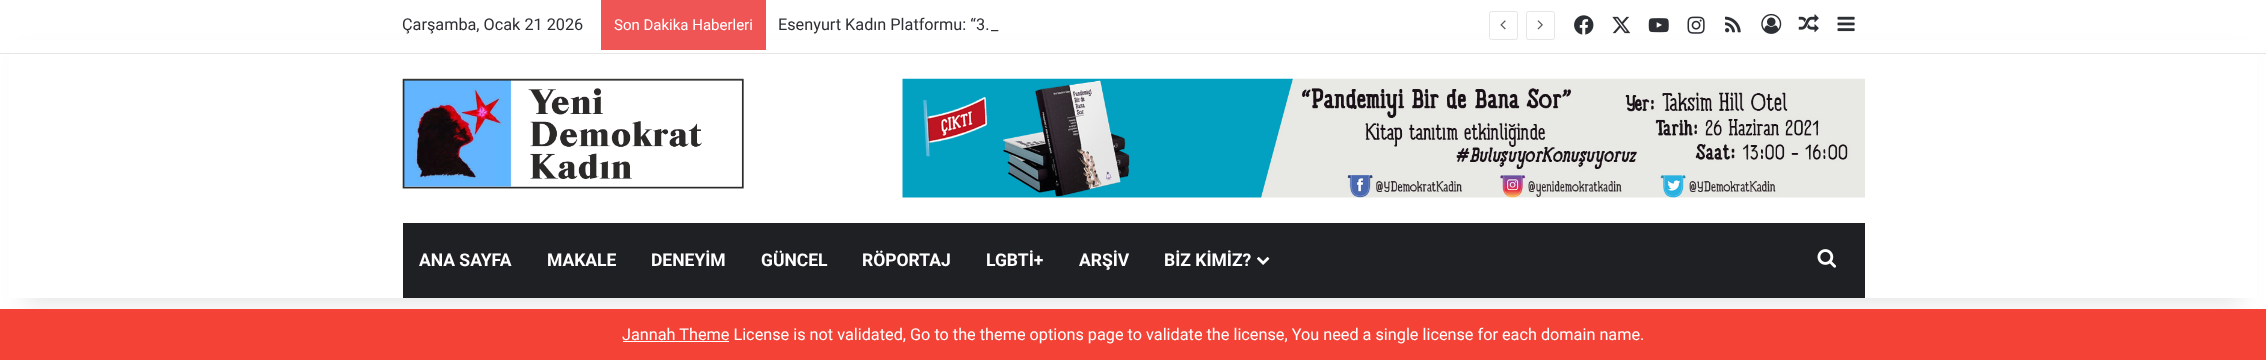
<svg xmlns="http://www.w3.org/2000/svg" width="2266" height="360">
<style>
.a{font:16.25px Roboto;fill:#2c2f34}
.b{font:15px Roboto;fill:#fff}
.c{font:bold 17.5px Roboto;fill:#fff}
.d{font:16.25px Roboto;fill:#fff}
</style>
<rect width="100%" height="100%" fill="#fff"/>
<path fill="#0000001a" filter="blur(12.5px)" d="M25 56h2216v248H25z"/>
<path fill="#fff" d="M9 40h2248v258H9z"/>
<path fill="#e6e6e6" d="M0 53h2266v1H0z"/>
<path fill="#f05555" d="M601 0h165v50H601z"/>
<rect fill="none" stroke="#e6e6e6" x="1489.5" y="11.5" width="28" height="28" rx="2"/>
<image href="1.png" x="1500" y="20" width="6" height="10"/>
<rect fill="none" stroke="#e6e6e6" x="1526.5" y="11.5" width="28" height="28" rx="2"/>
<image href="2.png" x="1537" y="20" width="6" height="10"/>
<image href="3.png" x="1574" y="15" width="20" height="20"/>
<image href="4.png" x="1612" y="16" width="19" height="18"/>
<image href="5.png" x="1648" y="18" width="21" height="15"/>
<image href="6.png" x="1687" y="16" width="18" height="18"/>
<image href="7.png" x="1725" y="16" width="16" height="17"/>
<image href="8.png" x="1761" y="13" width="21" height="21"/>
<image href="9.png" x="1798" y="14" width="21" height="19"/>
<image href="10.png" x="1837" y="16" width="18" height="16"/>
<image href="11.png" x="402" y="78" width="342" height="111"/>
<image href="12.png" x="902" y="78" width="963" height="120"/>
<path fill="#1f2024" d="M403 223h1462v75H403z"/>
<image href="13.png" x="1257" y="257" width="13" height="8"/>
<image href="14.png" x="1817" y="249" width="20" height="19"/>
<path fill="#f44336" d="M0 309h2266v51H0z"/>
<path fill="#fff" d="M623 341h106v1H623z"/>
<text class="a" x="402" y="30">Çarşamba, Ocak 21 2026</text>
<text class="b" x="614" y="30">Son Dakika Haberleri</text>
<text class="a" x="778" y="30">Esenyurt Kadın Platformu: “3.</text>
<text class="a" x="991" y="30">_</text>
<text class="c" x="419" y="266">ANA SAYFA</text>
<text class="c" x="547" y="266">MAKALE</text>
<text class="c" x="651" y="266">DENEYİM</text>
<text class="c" x="761" y="266">GÜNCEL</text>
<text class="c" x="862" y="266">RÖPORTAJ</text>
<text class="c" x="986" y="266">LGBTİ+</text>
<text class="c" x="1079" y="266">ARŞİV</text>
<text class="c" x="1164" y="266">BİZ KİMİZ?</text>
<text class="d" x="622" y="340">Jannah Theme License is not validated, Go to the theme options page to validate the license, You need a single license for each domain name.</text>
</svg>
